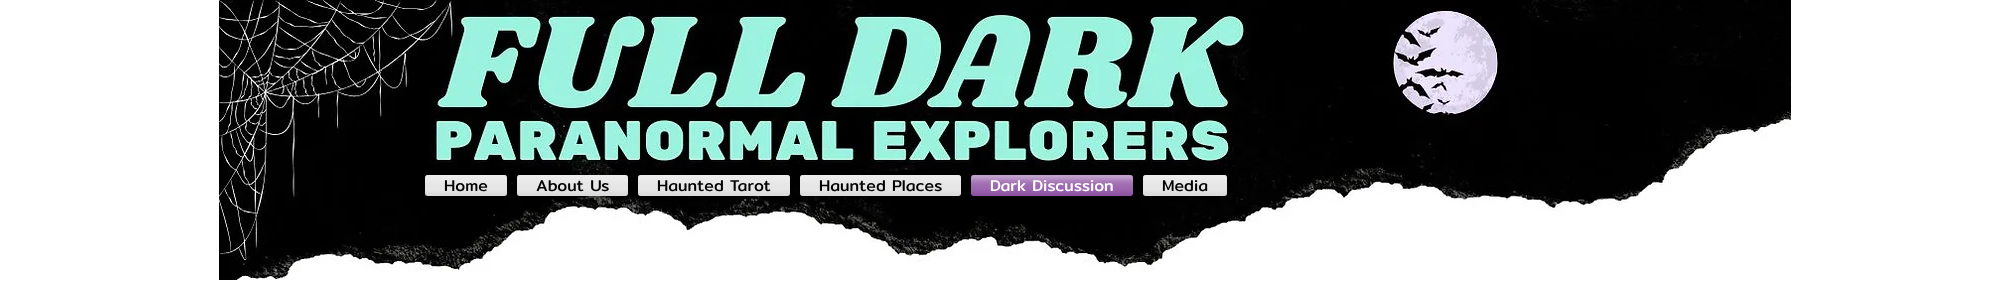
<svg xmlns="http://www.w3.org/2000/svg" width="2002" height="306">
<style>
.a{font:16px Mitr;fill:#000}
.b{font:16px Mitr;fill:#fff}
</style>
<rect width="100%" height="100%" fill="#fff"/>
<image href="1.png" x="219" y="0" width="1572" height="280"/>
<rect fill="#fff" x="425" y="175" width="82" height="21" rx="3"/>
<image href="2.png" x="425" y="175" width="82" height="21"/>
<image href="3.png" x="425" y="175" width="82" height="21"/>
<rect fill="#00000099" filter="blur(2px)" x="517" y="176" width="111" height="21" rx="3"/>
<rect fill="#fff" x="517" y="175" width="111" height="21" rx="3"/>
<image href="4.png" x="517" y="175" width="111" height="21"/>
<image href="5.png" x="517" y="175" width="111" height="21"/>
<rect fill="#00000099" filter="blur(2px)" x="638" y="176" width="152" height="21" rx="3"/>
<rect fill="#fff" x="638" y="175" width="152" height="21" rx="3"/>
<image href="6.png" x="638" y="175" width="152" height="21"/>
<image href="7.png" x="638" y="175" width="152" height="21"/>
<rect fill="#00000099" filter="blur(2px)" x="800" y="176" width="161" height="21" rx="3"/>
<rect fill="#fff" x="800" y="175" width="161" height="21" rx="3"/>
<image href="8.png" x="800" y="175" width="161" height="21"/>
<image href="9.png" x="800" y="175" width="161" height="21"/>
<rect fill="#8e3aab" x="971" y="175" width="162" height="21" rx="3"/>
<image href="10.png" x="971" y="175" width="162" height="21"/>
<image href="11.png" x="971" y="175" width="162" height="21"/>
<rect fill="#fff" x="1143" y="175" width="84" height="21" rx="3"/>
<image href="12.png" x="1143" y="175" width="84" height="21"/>
<image href="13.png" x="1143" y="175" width="84" height="21"/>
<text class="a" x="444" y="191">Home</text>
<text class="a" x="536" y="191">About Us</text>
<text class="a" x="657" y="191">Haunted Tarot</text>
<text class="a" x="819" y="191">Haunted Places</text>
<text class="b" x="990" y="191">Dark Discussion</text>
<text class="a" x="1162" y="191">Media</text>
</svg>
